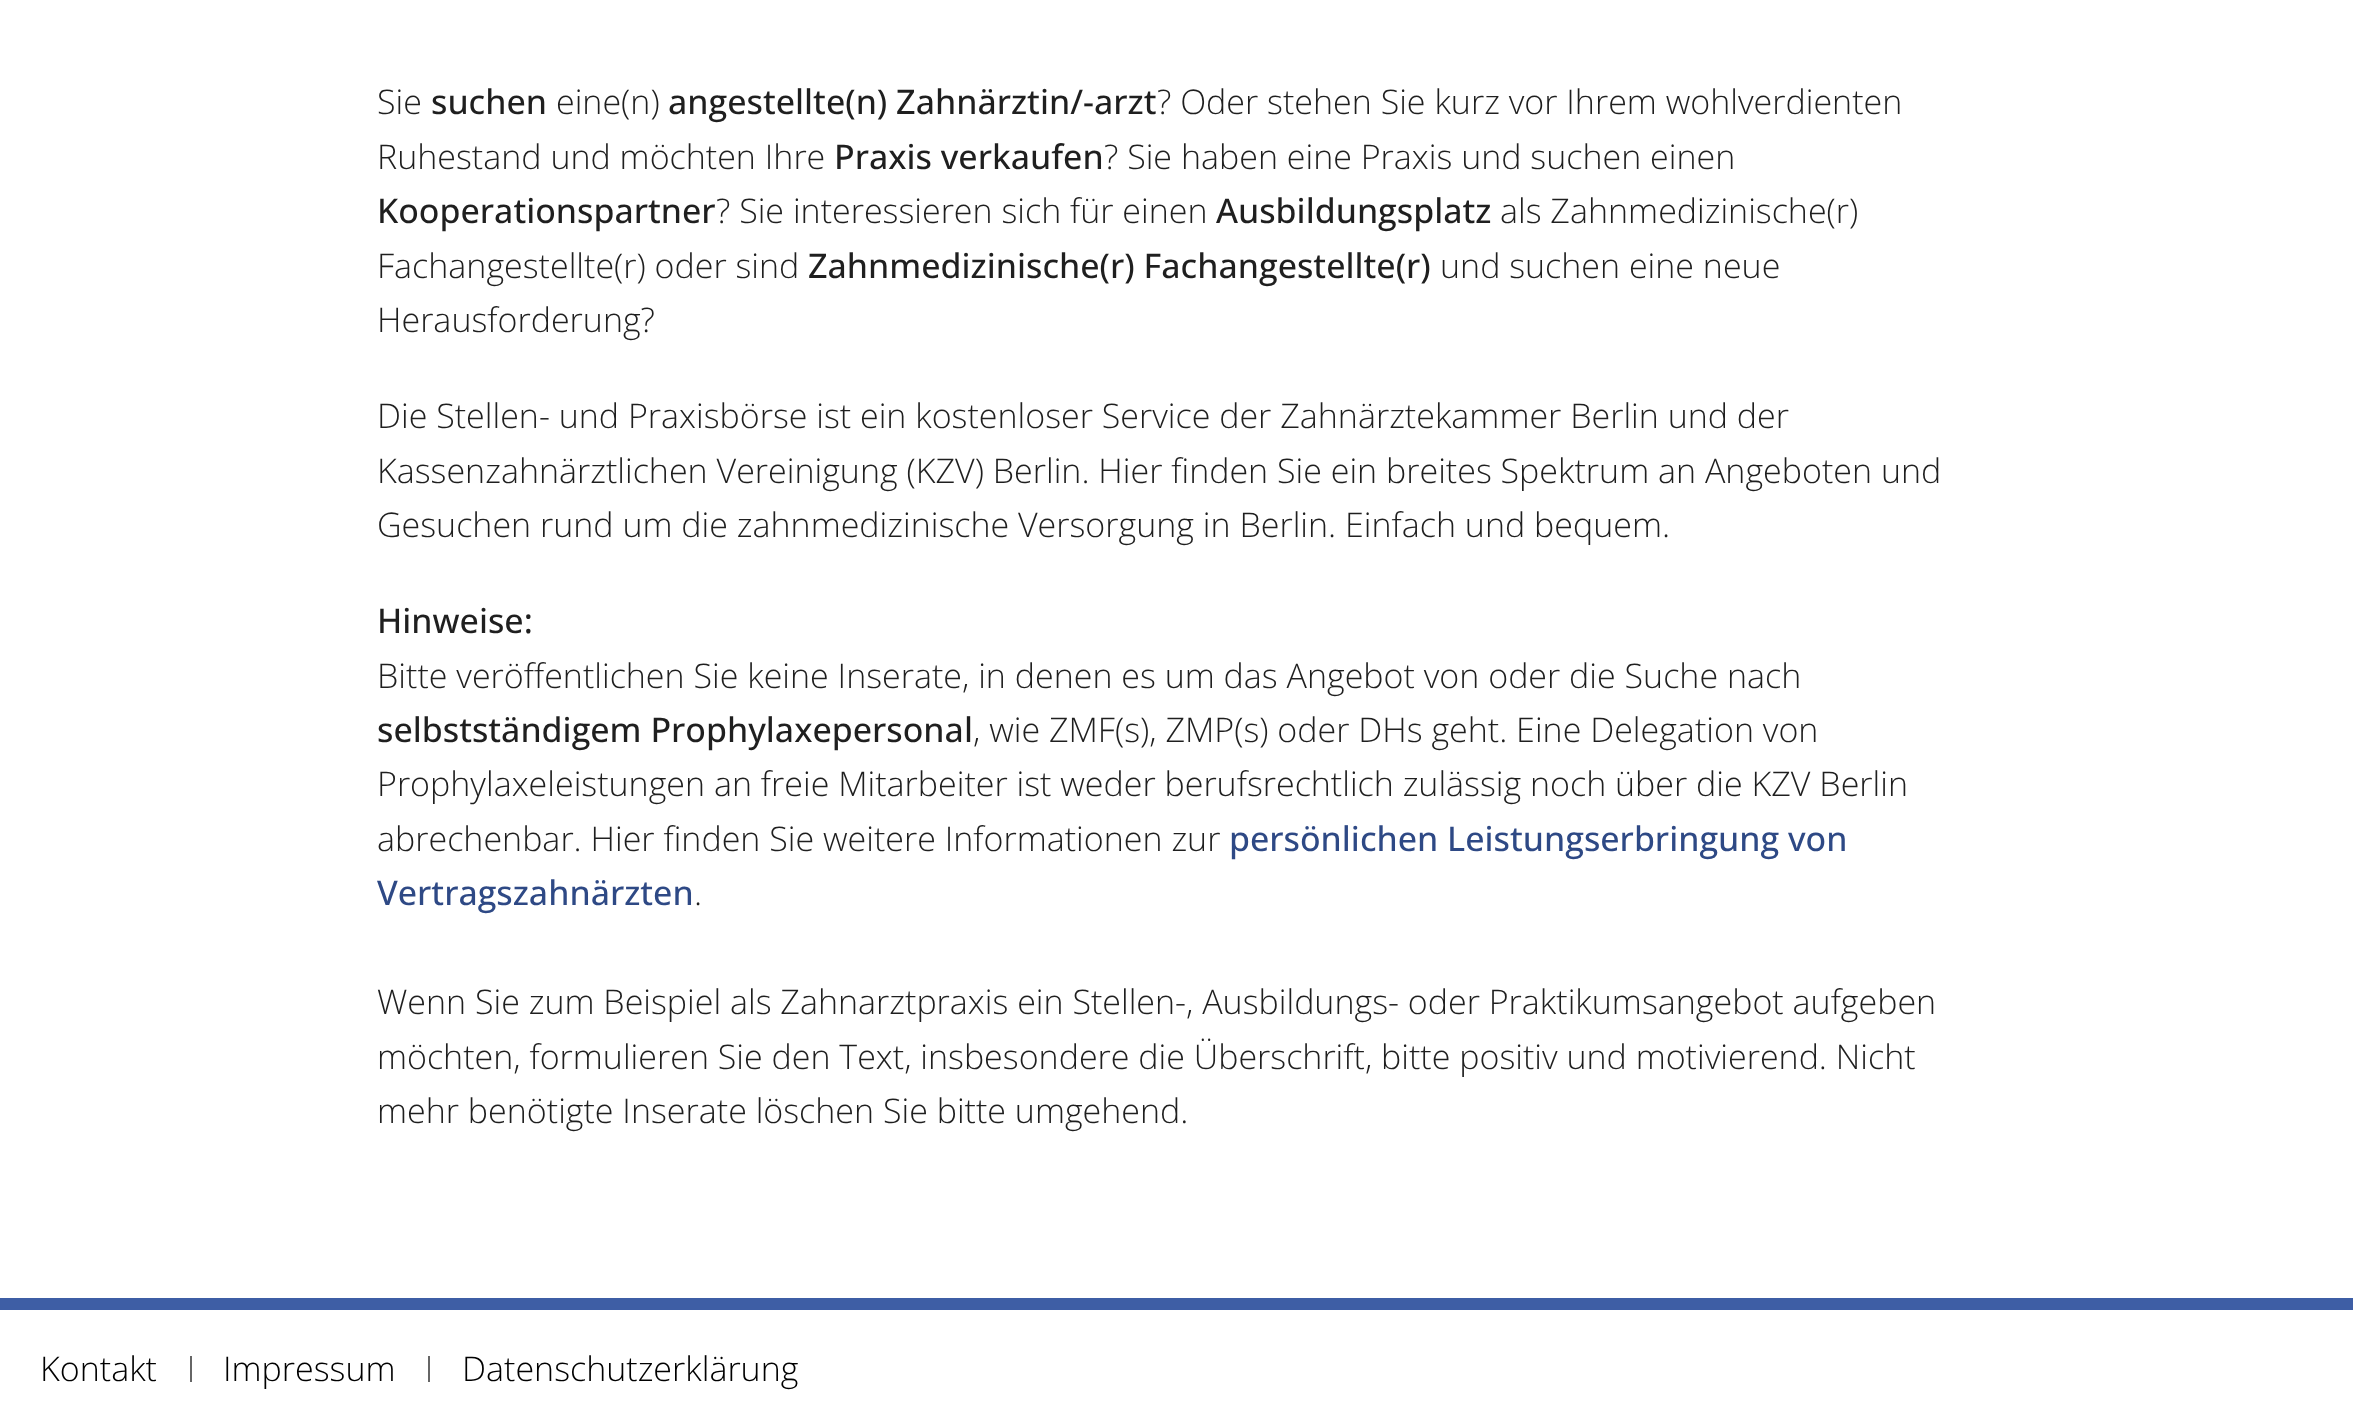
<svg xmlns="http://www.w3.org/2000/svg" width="2353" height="1428">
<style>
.a{font:300 34px Open Sans;fill:#1f1f1f}
.b{font:500 34px Open Sans;fill:#1f1f1f}
.c{font:500 34px Open Sans;fill:#2e4985}
.d{font:300 34px Open Sans;fill:#000}
</style>
<rect width="100%" height="100%" fill="#fff"/>
<path fill="#3e5ea5" d="M0 1298h2353v12H0z"/>
<path fill="#666" d="M190 1356h2v26H190z"/>
<path fill="#666" d="M428 1356h2v26H428z"/>
<text class="a" x="377" y="114">Sie</text>
<text class="b" x="431" y="114">suchen</text>
<text class="a" x="556" y="114">eine(n)</text>
<text class="b" x="668" y="114">angestellte(n) Zahnärztin/-arzt</text>
<text class="a" x="1157" y="114">? Oder stehen Sie kurz vor Ihrem wohlverdienten</text>
<text class="a" x="377" y="169">Ruhestand und möchten Ihre</text>
<text class="b" x="834" y="169">Praxis verkaufen</text>
<text class="a" x="1104" y="169">? Sie haben eine Praxis und suchen einen</text>
<text class="b" x="377" y="223">Kooperationspartner</text>
<text class="a" x="716" y="223">? Sie interessieren sich für einen</text>
<text class="b" x="1216" y="223">Ausbildungsplatz</text>
<text class="a" x="1500" y="223">als Zahnmedizinische(r)</text>
<text class="a" x="377" y="278">Fachangestellte(r) oder sind</text>
<text class="b" x="808" y="278">Zahnmedizinische(r) Fachangestellte(r)</text>
<text class="a" x="1440" y="278">und suchen eine neue</text>
<text class="a" x="377" y="332">Herausforderung?</text>
<text class="a" x="377" y="428">Die Stellen- und Praxisbörse ist ein kostenloser Service der Zahnärztekammer Berlin und der</text>
<text class="a" x="377" y="483">Kassenzahnärztlichen Vereinigung (KZV) Berlin. Hier finden Sie ein breites Spektrum an Angeboten und</text>
<text class="a" x="377" y="537">Gesuchen rund um die zahnmedizinische Versorgung in Berlin. Einfach und bequem.</text>
<text class="b" x="377" y="633">Hinweise:</text>
<text class="a" x="377" y="688">Bitte veröffentlichen Sie keine Inserate, in denen es um das Angebot von oder die Suche nach</text>
<text class="b" x="377" y="742">selbstständigem Prophylaxepersonal</text>
<text class="a" x="973" y="742">, wie ZMF(s), ZMP(s) oder DHs geht. Eine Delegation von</text>
<text class="a" x="377" y="796">Prophylaxeleistungen an freie Mitarbeiter ist weder berufsrechtlich zulässig noch über die KZV Berlin</text>
<text class="a" x="377" y="851">abrechenbar. Hier finden Sie weitere Informationen zur</text>
<text class="c" x="1229" y="851">persönlichen Leistungserbringung von</text>
<text class="c" x="377" y="905">Vertragszahnärzten</text>
<text class="a" x="694" y="905">.</text>
<text class="a" x="377" y="1014">Wenn Sie zum Beispiel als Zahnarztpraxis ein Stellen-, Ausbildungs- oder Praktikumsangebot aufgeben</text>
<text class="a" x="377" y="1069">möchten, formulieren Sie den Text, insbesondere die Überschrift, bitte positiv und motivierend. Nicht</text>
<text class="a" x="377" y="1123">mehr benötigte Inserate löschen Sie bitte umgehend.</text>
<text class="d" x="40" y="1381">Kontakt</text>
<text class="d" x="223" y="1381">Impressum</text>
<text class="d" x="462" y="1381">Datenschutzerklärung</text>
</svg>
